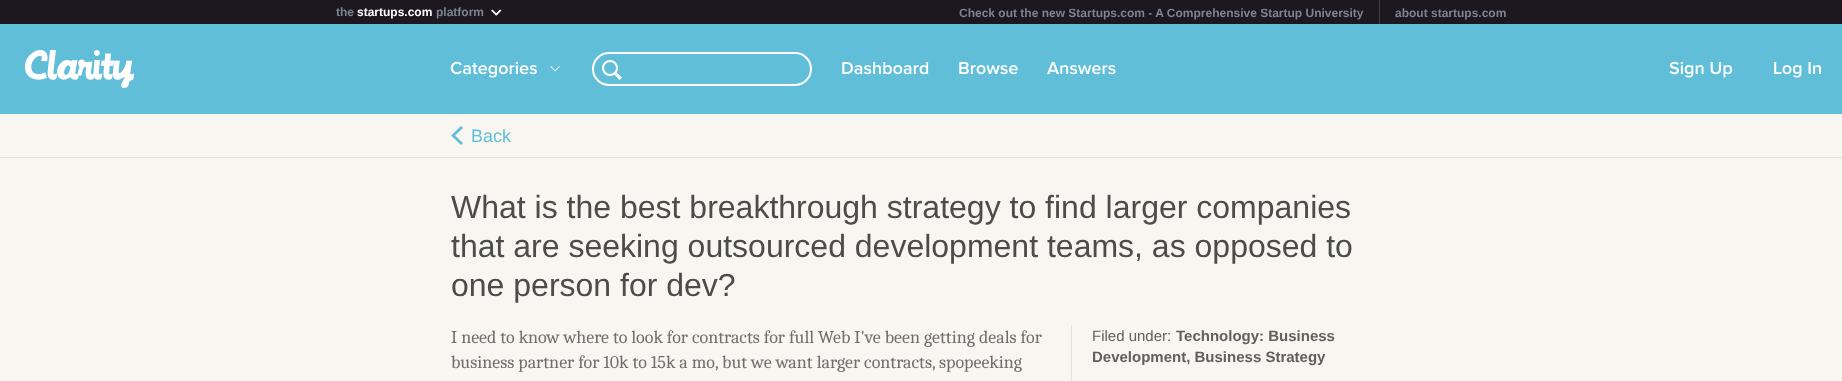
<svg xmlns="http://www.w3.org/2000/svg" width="1842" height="381">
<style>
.a{font:bold 12px Liberation Sans;fill:#7b8490}
.b{font:bold 12px Liberation Sans;fill:#fff}
.c{font:18px Liberation Sans;fill:#61bed9}
.d{font:32px Liberation Sans;fill:#4c4c4c}
.e{font:18px Caladea;fill:#6f6f6f}
.f{font:15px Liberation Sans;fill:#606060}
.g{font:bold 15px Liberation Sans;fill:#606060}
</style>
<rect width="100%" height="100%" fill="#1d181f"/>
<path fill="#fff" d="M497.5 14.5l-1.5 1l-5-5l1.5-1z"/>
<path fill="#fff" d="M496.5 15.5l-1.5-1l5-5l1.5 1z"/>
<path fill="#3e3d47" d="M1379 0h1v24H1379z"/>
<path fill="#61bed9" d="M0 24h1842v90H0z"/>
<image href="1.png" x="25" y="50" width="110" height="38"/>
<image href="2.png" x="450" y="61" width="87" height="17"/>
<image href="3.png" x="550" y="66" width="10" height="6"/>
<rect fill="none" stroke="#fff" stroke-width="2" x="593" y="53" width="218" height="32" rx="16"/>
<circle fill="none" stroke="#fff" stroke-width="2" cx="610" cy="68" r="7"/>
<path fill="#fff" fill-rule="evenodd" d="M614 74l2-2l6 5.5l-2.5 2.5z"/>
<image href="4.png" x="842" y="62" width="87" height="13"/>
<image href="5.png" x="959" y="62" width="59" height="13"/>
<image href="6.png" x="1047" y="62" width="69" height="13"/>
<image href="7.png" x="1669" y="61" width="64" height="17"/>
<image href="8.png" x="1774" y="62" width="47" height="16"/>
<path fill="#f7f6f1" d="M0 114h1842v43H0z"/>
<path fill="#e4e2de" d="M0 157h1842v1H0z"/>
<image href="9.png" x="451" y="126" width="12" height="19"/>
<path fill="#f7f6f1" d="M0 158h1842v223H0z"/>
<path fill="#e4e2de" d="M1071 325h1v56H1071z"/>
<text class="a" x="336" y="16">the</text>
<text class="b" x="357" y="16">startups.com</text>
<text class="a" x="436" y="16">platform</text>
<text class="a" x="959" y="17">Check out the new Startups.com - A Comprehensive Startup University</text>
<text class="a" x="1395" y="17">about startups.com</text>
<text class="c" x="471" y="142">Back</text>
<text class="d" x="451" y="218">What is the best breakthrough strategy to find larger companies</text>
<text class="d" x="451" y="257">that are seeking outsourced development teams, as opposed to</text>
<text class="d" x="451" y="296">one person for dev?</text>
<text class="e" x="451" y="343">I need to know where to look for contracts for full Web I've been getting deals for</text>
<text class="e" x="451" y="368">business partner for 10k to 15k a mo, but we want larger contracts, spopeeking</text>
<text class="f" x="1092" y="341">Filed under:</text>
<text class="g" x="1176" y="341">Technology: Business</text>
<text class="g" x="1092" y="362">Development, Business Strategy</text>
</svg>
